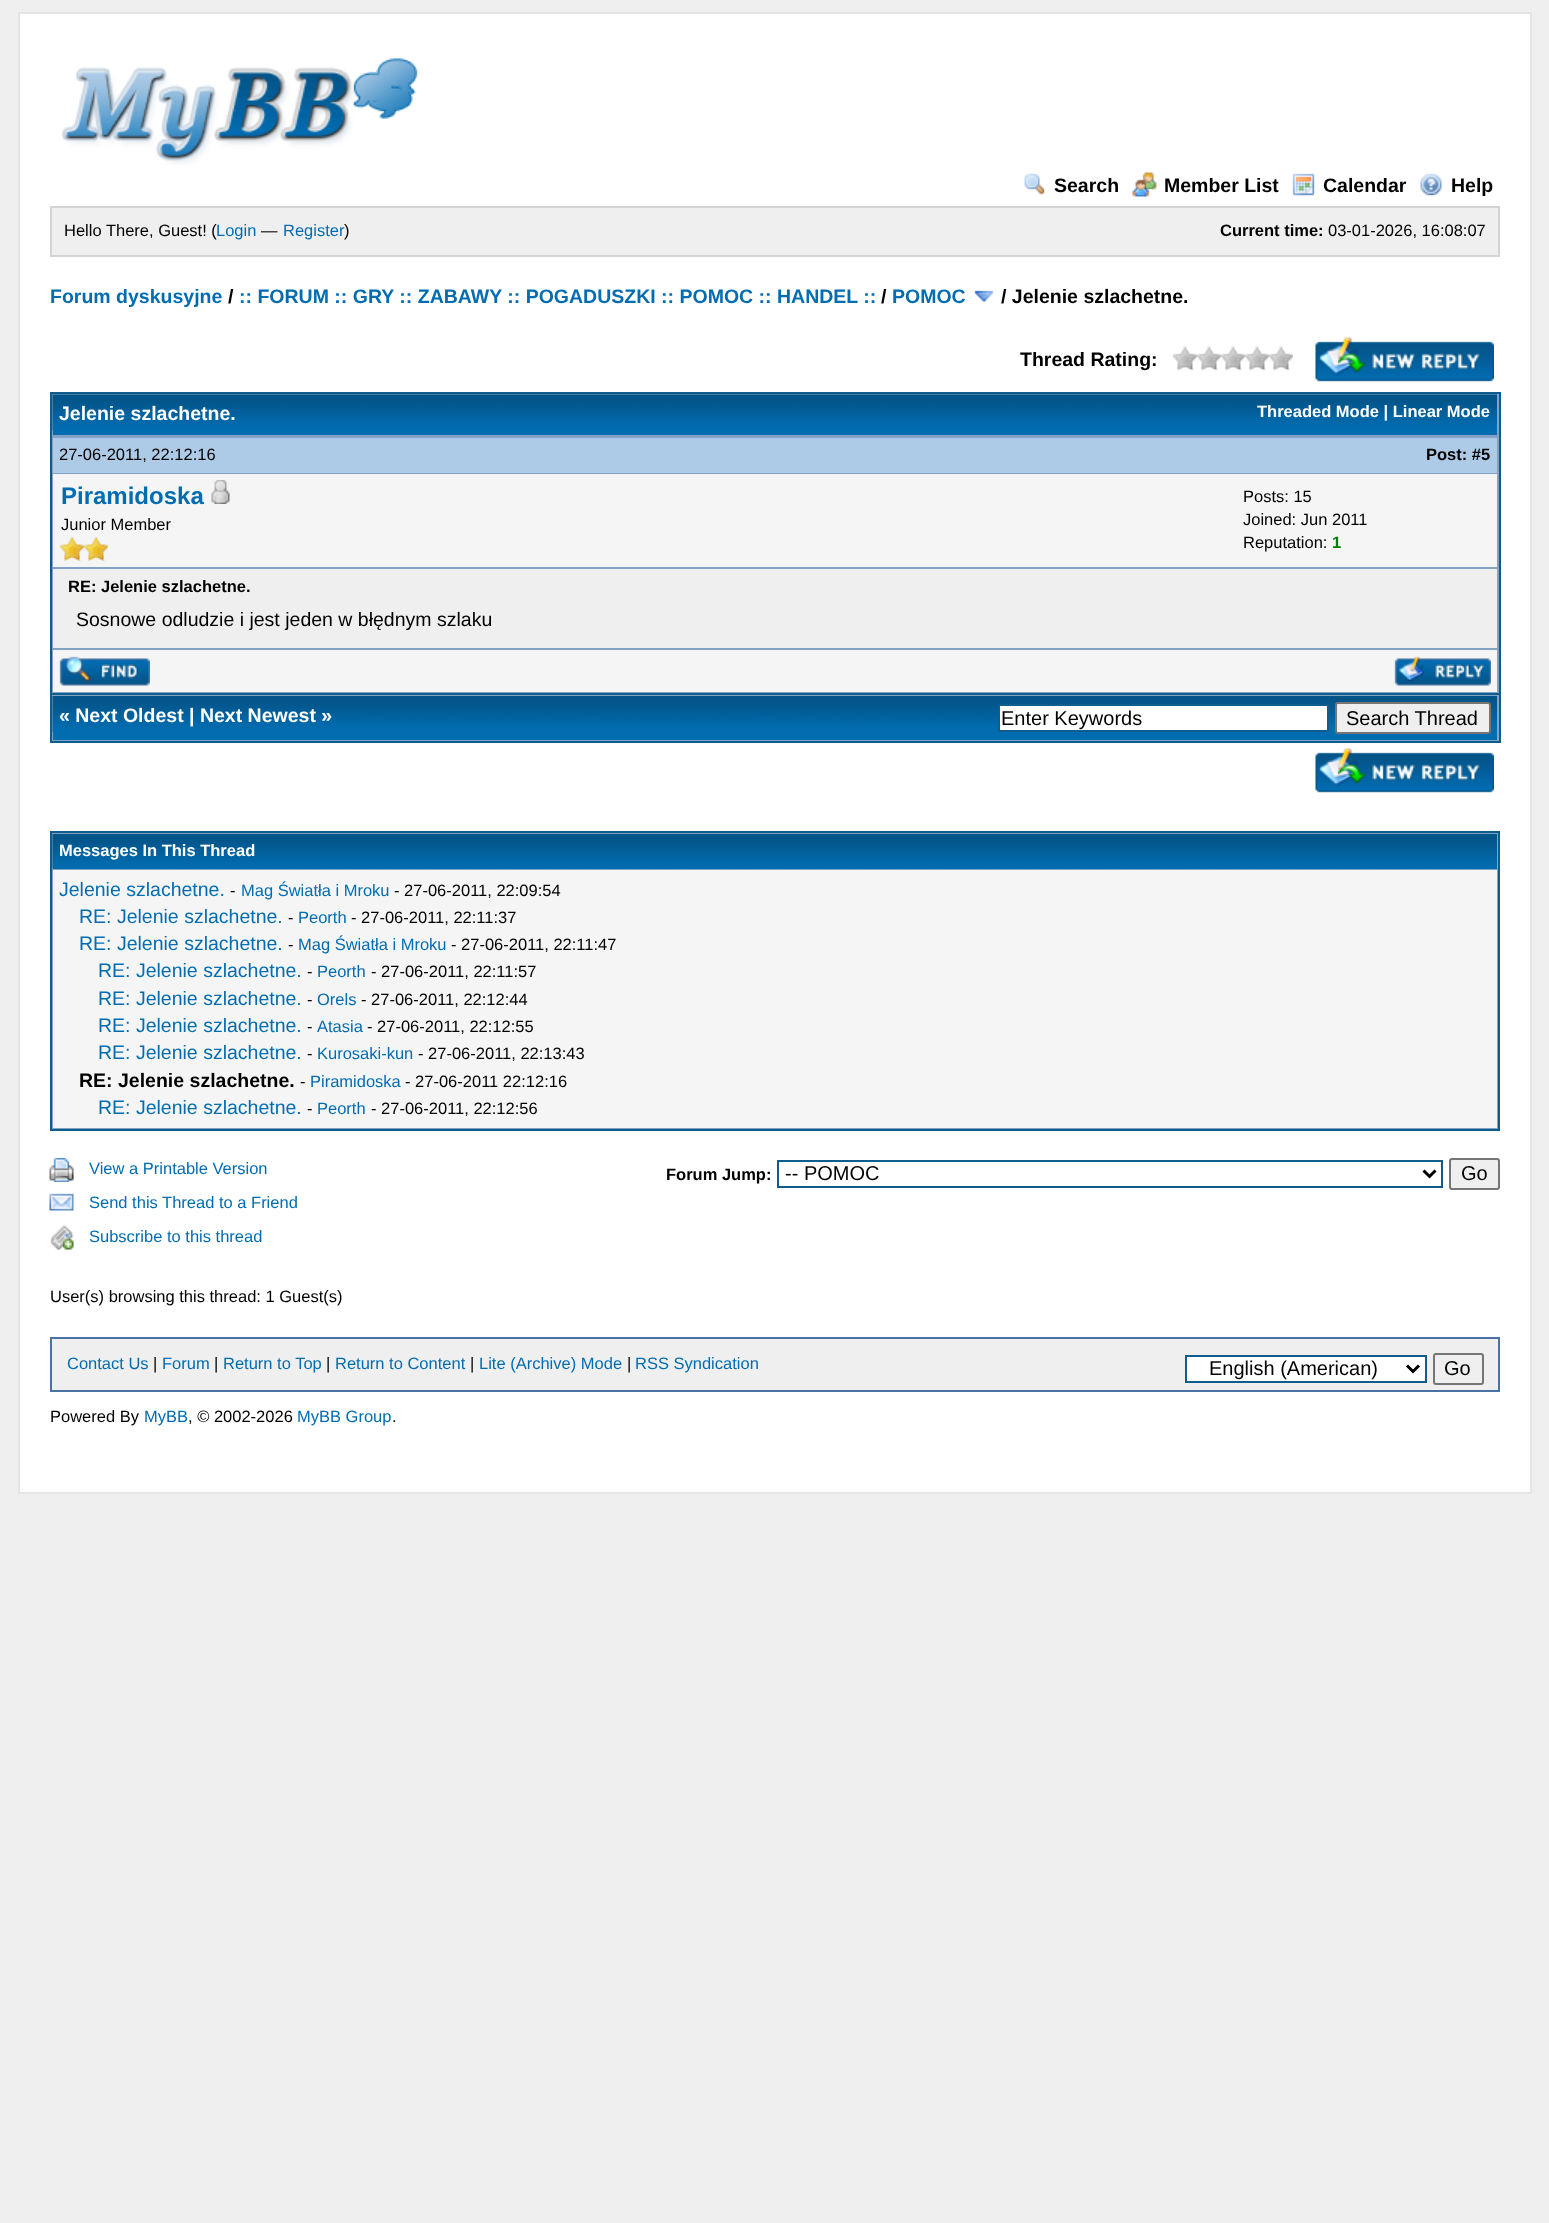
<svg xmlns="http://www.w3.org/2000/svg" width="1549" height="2223">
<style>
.a{font:bold 19.5px Liberation Sans;fill:#000}
.b{font:16.5px Liberation Sans;fill:#000}
.c{font:16.5px Liberation Sans;fill:#026cb1}
.d{font:bold 16.5px Liberation Sans;fill:#000}
.e{font:bold 19.5px Liberation Sans;fill:#026cb1}
.f{font:bold 19.5px Liberation Sans;fill:#fff}
.g{font:bold 16.5px Liberation Sans;fill:#fff}
.h{font:bold 24px Liberation Sans;fill:#026cb1}
.i{font:bold 16.5px Liberation Sans;fill:#008000}
.j{font:19.5px Liberation Sans;fill:#000}
.k{font:20px Liberation Sans;fill:#000}
.l{font:19.5px Liberation Sans;fill:#026cb1}
</style>
<rect width="100%" height="100%" fill="#efefef"/>
<path fill="#fff" stroke="#e4e4e4" stroke-width="2" d="M19 13h1512v1480H19z"/>
<image href="1.png" x="61" y="58" width="357" height="107"/>
<image href="2.png" x="1024" y="173" width="21" height="23"/>
<image href="3.png" x="1132" y="172" width="25" height="25"/>
<image href="4.png" x="1292" y="173" width="23" height="23"/>
<image href="5.png" x="1420" y="173" width="22" height="23"/>
<path fill="#efefef" stroke="#d4d4d4" stroke-width="2" d="M51 207h1448v49H51z"/>
<image href="6.png" x="974" y="290" width="20" height="12"/>
<image href="7.png" x="1173" y="346" width="120" height="25"/>
<image href="8.png" x="1315" y="337" width="179" height="45"/>
<path fill="#81a2c4" d="M52 394h1447v299H52z"/>
<path fill="#0f5c8e" d="M50 392h1450v2H50z"/>
<path fill="#0f5c8e" d="M1499 392h2v351H1499z"/>
<path fill="#0f5c8e" d="M50 392h2v45H50z"/>
<path fill="#026cb1" d="M53 430h1444v5H53z"/>
<image href="9.png" x="52" y="394" width="1445" height="37"/>
<path fill="#0f5c8e" d="M50 693h1450v2H50z"/>
<path fill="#0f5c8e" d="M50 437h2v258H50z"/>
<path fill="#adcbe7" d="M53 438h1444v35H53z"/>
<path fill="#f5f5f5" d="M53 474h1444v93H53z"/>
<image href="10.png" x="211" y="480" width="19" height="24"/>
<image href="11.png" x="60" y="537" width="24" height="24"/>
<image href="11.png" x="84" y="537" width="24" height="24"/>
<path fill="#efefef" d="M53 569h1444v79H53z"/>
<path fill="#f5f5f5" d="M53 650h1444v42H53z"/>
<image href="12.png" x="59" y="656" width="91" height="30"/>
<image href="13.png" x="1394" y="656" width="97" height="30"/>
<path fill="#81a2c4" d="M52 695h1447v46H52z"/>
<path fill="#0f5c8e" d="M50 741h1450v2H50z"/>
<path fill="#0f5c8e" d="M50 695h2v48H50z"/>
<path fill="#026cb1" d="M53 732h1444v8H53z"/>
<image href="14.png" x="52" y="696" width="1445" height="36"/>
<path fill="#fff" stroke="#0f5c8e" stroke-width="2" d="M999 705h329v26H999z"/>
<rect fill="#efefef" stroke="#767676" stroke-width="2" x="1336" y="703" width="154" height="30" rx="2"/>
<image href="8.png" x="1315" y="748" width="179" height="45"/>
<path fill="#81a2c4" stroke="#0f5c8e" stroke-width="2" d="M51 832h1448v298H51z"/>
<path fill="#026cb1" d="M53 868h1444v1H53z"/>
<image href="15.png" x="52" y="834" width="1445" height="35"/>
<path fill="#f5f5f5" d="M53 870h1444v258H53z"/>
<image href="16.png" x="49" y="1158" width="25" height="24"/>
<image href="17.png" x="49" y="1193" width="25" height="18"/>
<image href="18.png" x="50" y="1225" width="24" height="25"/>
<path fill="none" stroke="#0f5c8e" stroke-width="2" d="M778 1161h664v26H778z"/>
<path fill="none" stroke="#000" stroke-width="3" d="M1423.5 1170.5l6 6l6-6"/>
<rect fill="#efefef" stroke="#767676" stroke-width="2" x="1450" y="1159" width="49" height="30" rx="2"/>
<path fill="#efefef" stroke="#4874a3" stroke-width="2" d="M51 1338h1448v53H51z"/>
<path fill="#fff" stroke="#0f5c8e" stroke-width="2" d="M1186 1356h240v26H1186z"/>
<path fill="none" stroke="#000" stroke-width="3" d="M1407 1365.5l6 6l6-6"/>
<rect fill="none" stroke="#767676" stroke-width="2" x="1434" y="1354" width="49" height="30" rx="2"/>
<text class="a" x="1054" y="192">Search</text>
<text class="a" x="1164" y="192">Member List</text>
<text class="a" x="1323" y="192">Calendar</text>
<text class="a" x="1451" y="192">Help</text>
<text class="b" x="64" y="236">Hello There, Guest! (</text>
<text class="c" x="216" y="236">Login</text>
<text class="b" x="261" y="236">—</text>
<text class="c" x="283" y="236">Register</text>
<text class="b" x="344" y="236">)</text>
<text class="d" x="1220" y="236">Current time:</text>
<text class="b" x="1328" y="236">03-01-2026, 16:08:07</text>
<text class="e" x="50" y="303">Forum dyskusyjne</text>
<text class="a" x="228" y="303">/</text>
<text class="e" x="239" y="303">:: FORUM :: GRY :: ZABAWY :: POGADUSZKI :: POMOC :: HANDEL ::</text>
<text class="a" x="881" y="303">/</text>
<text class="e" x="892" y="303">POMOC</text>
<text class="a" x="1001" y="303">/ Jelenie szlachetne.</text>
<text class="a" x="1020" y="366">Thread Rating:</text>
<text class="f" x="59" y="420">Jelenie szlachetne.</text>
<text class="g" x="1257" y="417">Threaded Mode | Linear Mode</text>
<text class="b" x="59" y="460">27-06-2011, 22:12:16</text>
<text class="d" x="1426" y="460">Post: #5</text>
<text class="h" x="61" y="504">Piramidoska</text>
<text class="b" x="61" y="530">Junior Member</text>
<text class="b" x="1243" y="502">Posts: 15</text>
<text class="b" x="1243" y="525">Joined: Jun 2011</text>
<text class="b" x="1243" y="548">Reputation:</text>
<text class="i" x="1332" y="548">1</text>
<text class="d" x="68" y="592">RE: Jelenie szlachetne.</text>
<text class="j" x="76" y="626">Sosnowe odludzie i jest jeden w błędnym szlaku</text>
<text class="f" x="59" y="722">« Next Oldest | Next Newest »</text>
<text class="k" x="1001" y="725">Enter Keywords</text>
<text class="k" x="1346" y="725">Search Thread</text>
<text class="g" x="59" y="856">Messages In This Thread</text>
<text class="l" x="59" y="896">Jelenie szlachetne.</text>
<text class="b" x="230" y="896">-</text>
<text class="c" x="241" y="896">Mag Światła i Mroku</text>
<text class="b" x="394" y="896">- 27-06-2011, 22:09:54</text>
<text class="l" x="79" y="923">RE: Jelenie szlachetne.</text>
<text class="b" x="288" y="923">-</text>
<text class="c" x="298" y="923">Peorth</text>
<text class="b" x="351" y="923">- 27-06-2011, 22:11:37</text>
<text class="l" x="79" y="950">RE: Jelenie szlachetne.</text>
<text class="b" x="288" y="950">-</text>
<text class="c" x="298" y="950">Mag Światła i Mroku</text>
<text class="b" x="451" y="950">- 27-06-2011, 22:11:47</text>
<text class="l" x="98" y="977">RE: Jelenie szlachetne.</text>
<text class="b" x="307" y="977">-</text>
<text class="c" x="317" y="977">Peorth</text>
<text class="b" x="371" y="977">- 27-06-2011, 22:11:57</text>
<text class="l" x="98" y="1005">RE: Jelenie szlachetne.</text>
<text class="b" x="307" y="1005">-</text>
<text class="c" x="317" y="1005">Orels</text>
<text class="b" x="361" y="1005">- 27-06-2011, 22:12:44</text>
<text class="l" x="98" y="1032">RE: Jelenie szlachetne.</text>
<text class="b" x="307" y="1032">-</text>
<text class="c" x="317" y="1032">Atasia</text>
<text class="b" x="367" y="1032">- 27-06-2011, 22:12:55</text>
<text class="l" x="98" y="1059">RE: Jelenie szlachetne.</text>
<text class="b" x="307" y="1059">-</text>
<text class="c" x="317" y="1059">Kurosaki-kun</text>
<text class="b" x="418" y="1059">- 27-06-2011, 22:13:43</text>
<text class="a" x="79" y="1087">RE: Jelenie szlachetne.</text>
<text class="b" x="300" y="1087">-</text>
<text class="c" x="310" y="1087">Piramidoska</text>
<text class="b" x="405" y="1087">- 27-06-2011 22:12:16</text>
<text class="l" x="98" y="1114">RE: Jelenie szlachetne.</text>
<text class="b" x="307" y="1114">-</text>
<text class="c" x="317" y="1114">Peorth</text>
<text class="b" x="371" y="1114">- 27-06-2011, 22:12:56</text>
<text class="c" x="89" y="1174">View a Printable Version</text>
<text class="c" x="89" y="1208">Send this Thread to a Friend</text>
<text class="c" x="89" y="1242">Subscribe to this thread</text>
<text class="d" x="666" y="1180">Forum Jump:</text>
<text class="k" x="785" y="1180">-- POMOC</text>
<text class="k" x="1461" y="1180">Go</text>
<text class="b" x="50" y="1302">User(s) browsing this thread: 1 Guest(s)</text>
<text class="c" x="67" y="1369">Contact Us</text>
<text class="b" x="153" y="1369">|</text>
<text class="c" x="162" y="1369">Forum</text>
<text class="b" x="214" y="1369">|</text>
<text class="c" x="223" y="1369">Return to Top</text>
<text class="b" x="326" y="1369">|</text>
<text class="c" x="335" y="1369">Return to Content</text>
<text class="b" x="470" y="1369">|</text>
<text class="c" x="479" y="1369">Lite (Archive) Mode</text>
<text class="b" x="627" y="1369">|</text>
<text class="c" x="635" y="1369">RSS Syndication</text>
<text class="k" x="1209" y="1375">English (American)</text>
<text class="k" x="1444" y="1375">Go</text>
<text class="b" x="50" y="1422">Powered By</text>
<text class="c" x="144" y="1422">MyBB</text>
<text class="b" x="188" y="1422">, © 2002-2026</text>
<text class="c" x="297" y="1422">MyBB Group</text>
<text class="b" x="392" y="1422">.</text>
</svg>
